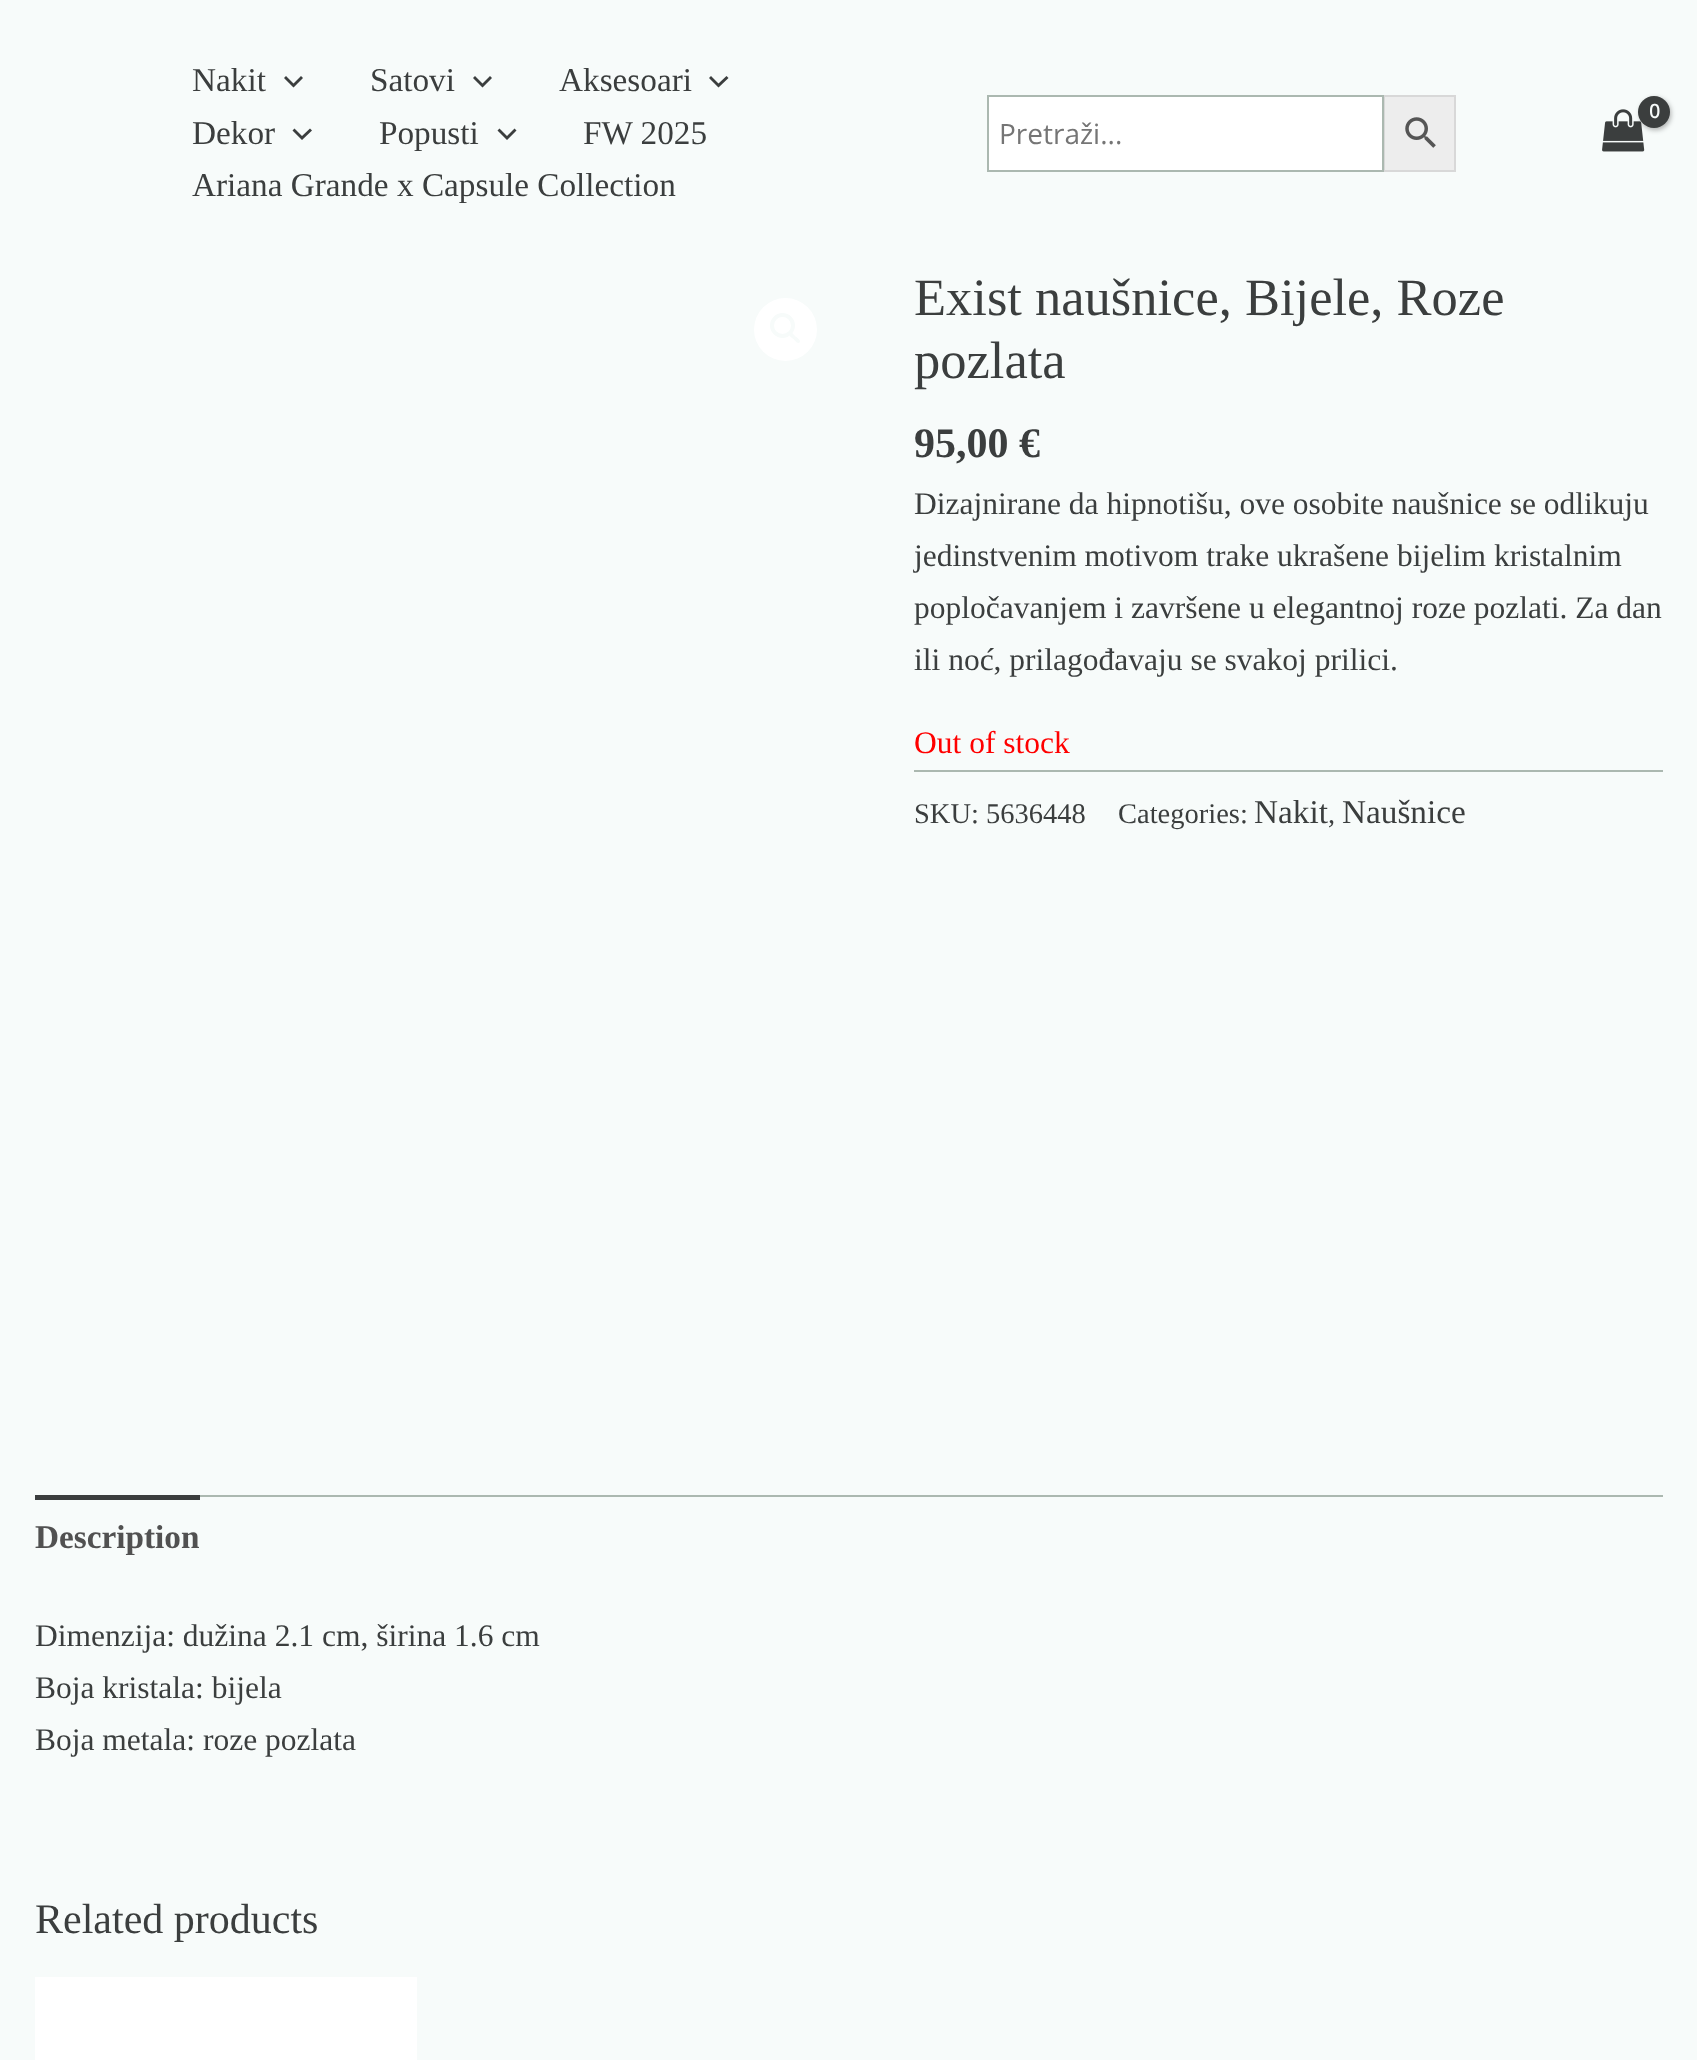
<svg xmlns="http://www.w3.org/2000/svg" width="1697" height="2060">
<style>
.a{font:33.25px Liberation Serif;fill:#3b3e3e}
.b{font:bold 19px Open Sans;letter-spacing:-1px;fill:#f7fbfa}
.c{font:28px Open Sans;fill:#757575}
.d{font:52.5px Liberation Serif;fill:#3b3e3e}
.e{font:bold 42px Liberation Serif;fill:#3b3e3e}
.f{font:31.5px Liberation Serif;fill:#3b3e3e}
.g{font:31.5px Liberation Serif;fill:#f00}
.h{font:28.5px Liberation Serif;fill:#3b3e3e}
.i{font:bold 33.25px Liberation Serif;fill:#515151}
.j{font:42px Liberation Serif;fill:#3b3e3e}
</style>
<rect width="100%" height="100%" fill="#f7fbfa"/>
<path fill="#3b3e3e" d="M284 78l9.5 9.5l9.5-9.5l-2-2l-7.5 7.5l-7.5-7.5z"/>
<path fill="#3b3e3e" d="M473 78l9.5 9.5l9.5-9.5l-2-2l-7.5 7.5l-7.5-7.5z"/>
<path fill="#3b3e3e" d="M709 78l9.5 9.5l10-9.5l-2-2l-8 7.5l-7.5-7.5z"/>
<path fill="#3b3e3e" d="M292.5 130.5l9.5 9.5l10-9.5l-2-2l-8 7.5l-7.5-7.5z"/>
<path fill="#3b3e3e" d="M497.5 130.5l9.5 9.5l9.5-9.5l-2-2l-7.5 7.5l-7.5-7.5z"/>
<image href="1.png" x="1602" y="109" width="43" height="43"/>
<rect fill="#0000004d" filter="blur(2.5px)" x="1640" y="98" width="31" height="32" rx="15.5"/>
<circle fill="#3b3e3e" cx="1654" cy="112" r="16"/>
<path fill="#ededed" stroke="#d8d8d8" stroke-width="2" d="M1384 96h71v75H1384z"/>
<path fill="#fff" stroke="#abb8b0" stroke-width="2" d="M988 96h395v75H988z"/>
<image href="2.png" x="1405" y="117" width="31" height="31"/>
<circle fill="#fff" cx="785.5" cy="329.5" r="31.5"/>
<circle fill="none" stroke="#f7fbfa" stroke-width="4" cx="782.5" cy="325.5" r="10.5"/>
<path fill="#f7fbfa" d="M789.5 333c2-2 5 2.5 6 3.5c1.5 1 6 4 4 6c-2 2-5-2.5-6-3.5c-1.5-1-6-4-4-6z"/>
<path fill="#abb8b0" d="M914 770h749v2H914z"/>
<path fill="#abb8b0" d="M200 1495h1463v2H200z"/>
<path fill="#3b3e3e" d="M35 1495h165v5H35z"/>
<path fill="#fff" d="M35 1977h382v83H35z"/>
<text class="a" x="192" y="91">Nakit</text>
<text class="a" x="370" y="91">Satovi</text>
<text class="a" x="559" y="91">Aksesoari</text>
<text class="a" x="192" y="144">Dekor</text>
<text class="a" x="379" y="144">Popusti</text>
<text class="a" x="583" y="144">FW 2025</text>
<text class="a" x="192" y="196">Ariana Grande x Capsule Collection</text>
<text class="b" x="1649" y="118">0</text>
<text class="c" x="999" y="144">Pretraži...</text>
<text class="d" x="914" y="315">Exist naušnice, Bijele, Roze</text>
<text class="d" x="914" y="378">pozlata</text>
<text class="e" x="914" y="457">95,00 €</text>
<text class="f" x="914" y="514">Dizajnirane da hipnotišu, ove osobite naušnice se odlikuju</text>
<text class="f" x="914" y="566">jedinstvenim motivom trake ukrašene bijelim kristalnim</text>
<text class="f" x="914" y="618">popločavanjem i završene u elegantnoj roze pozlati. Za dan</text>
<text class="f" x="914" y="670">ili noć, prilagođavaju se svakoj prilici.</text>
<text class="g" x="914" y="753">Out of stock</text>
<text class="h" x="914" y="823">SKU: 5636448</text>
<text class="h" x="1118" y="823">Categories:</text>
<text class="a" x="1254" y="823">Nakit</text>
<text class="h" x="1328" y="823">,</text>
<text class="a" x="1342" y="823">Naušnice</text>
<text class="i" x="35" y="1548">Description</text>
<text class="f" x="35" y="1646">Dimenzija: dužina 2.1 cm, širina 1.6 cm</text>
<text class="f" x="35" y="1698">Boja kristala: bijela</text>
<text class="f" x="35" y="1750">Boja metala: roze pozlata</text>
<text class="j" x="35" y="1933">Related products</text>
</svg>
